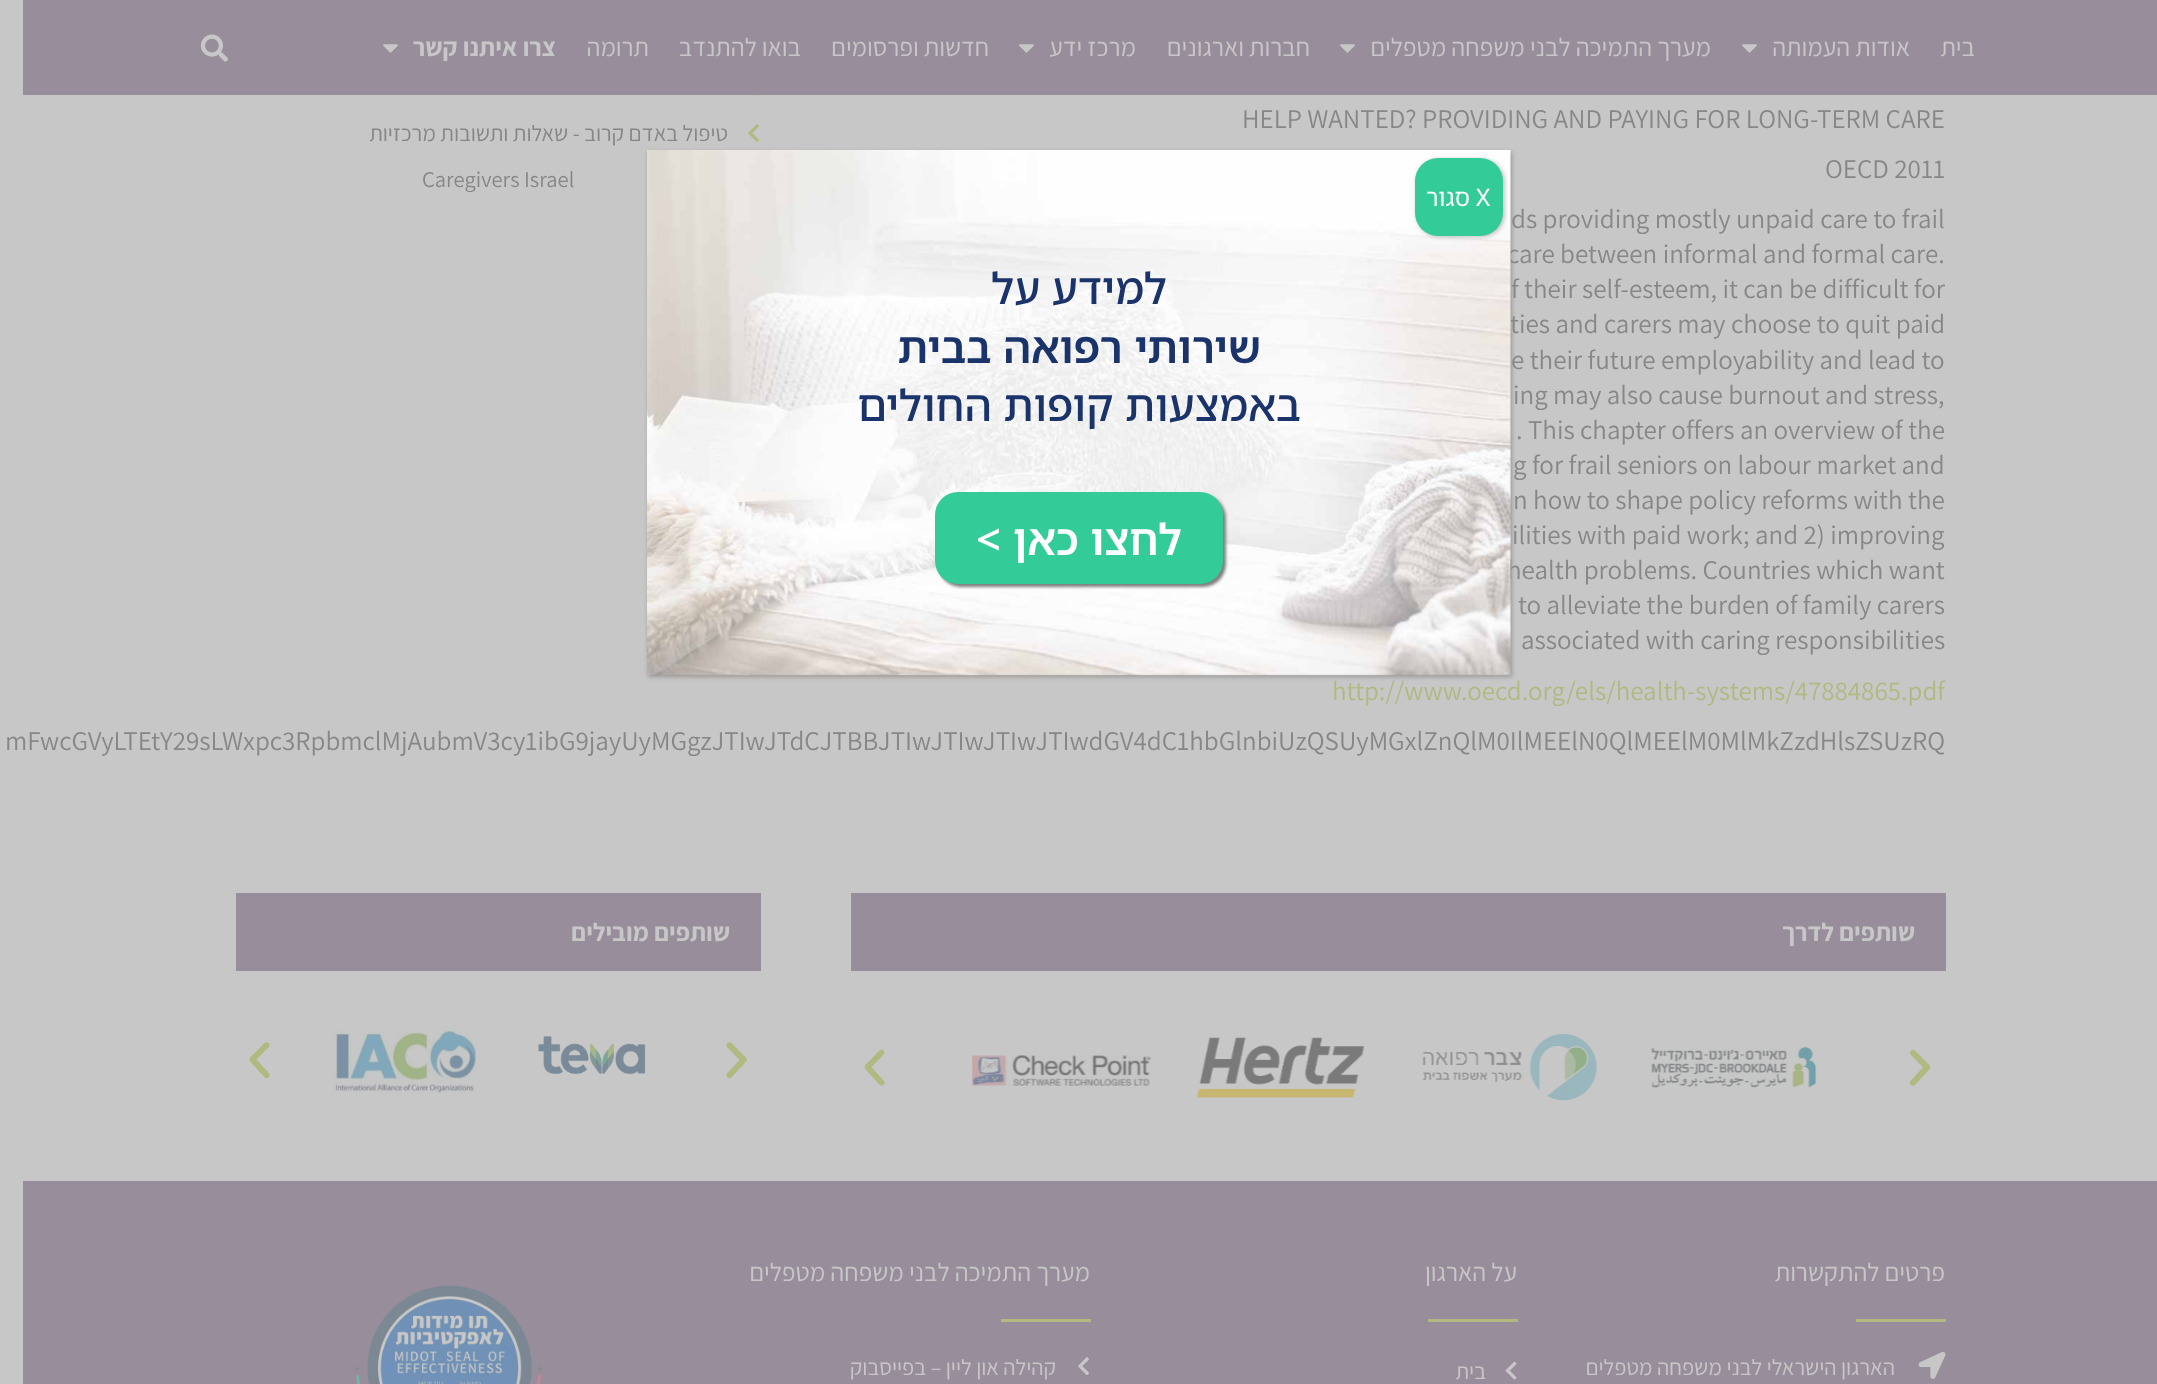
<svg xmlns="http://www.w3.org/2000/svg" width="2157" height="1384">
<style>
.a{font:bold 25.5px Assistant;direction:rtl;fill:#c7c7c7}
.b{font:25.5px Assistant;direction:rtl;fill:#c7c7c7}
.c{font:27px Assistant;fill:#878787}
.d{font:27px Assistant;fill:#b1b981}
.e{font:22.5px Assistant;direction:rtl;fill:#878787}
.f{font:22.5px Assistant;fill:#878787}
.g{font:22.5px Assistant;direction:rtl;fill:#c7c7c7}
.h{font:24px Noto Sans Hebrew;direction:rtl;fill:#fff}
.i{font:24px Noto Sans Hebrew;fill:#fff}
.j{font:500 43.1px Noto Sans Hebrew;direction:rtl;fill:#1a336b}
.k{font:600 43.1px Noto Sans Hebrew;direction:rtl;fill:#1a336b}
.l{font:600 43.1px Noto Sans Hebrew;direction:rtl;fill:#fff}
</style>
<rect width="100%" height="100%" fill="#c7c7c7"/>
<path fill="#988d9b" d="M23 0h2134v95H23z"/>
<image href="1.png" x="200" y="34" width="29" height="28"/>
<image href="2.png" x="383" y="44" width="15" height="9"/>
<image href="2.png" x="1019" y="44" width="15" height="9"/>
<image href="2.png" x="1340" y="44" width="15" height="9"/>
<image href="2.png" x="1742" y="44" width="15" height="9"/>
<image href="3.png" x="756" y="95" width="2" height="1"/>
<image href="4.png" x="748" y="124" width="11" height="18"/>
<path fill="#988d9b" d="M236 893h525v78H236z"/>
<image href="5.png" x="249" y="1042" width="21" height="37"/>
<image href="6.png" x="333" y="1027" width="143" height="66"/>
<image href="7.png" x="538" y="1036" width="108" height="39"/>
<image href="8.png" x="726" y="1042" width="21" height="37"/>
<path fill="#988d9b" d="M851 893h1095v78H851z"/>
<image href="9.png" x="864" y="1049" width="21" height="37"/>
<image href="10.png" x="972" y="1055" width="179" height="31"/>
<image href="11.png" x="1196" y="1037" width="169" height="61"/>
<image href="12.png" x="1422" y="1033" width="176" height="68"/>
<image href="13.png" x="1651" y="1046" width="166" height="43"/>
<image href="14.png" x="1909" y="1049" width="22" height="37"/>
<path fill="#988d9b" d="M23 1181h2134v203H23z"/>
<image href="15.png" x="355" y="1285" width="187" height="99"/>
<path fill="#b1b981" d="M1001 1319h90v3H1001z"/>
<image href="16.png" x="1078" y="1357" width="11" height="18"/>
<path fill="#b1b981" d="M1428 1319h90v3H1428z"/>
<image href="17.png" x="1505" y="1361" width="12" height="19"/>
<path fill="#b1b981" d="M1856 1319h90v3H1856z"/>
<image href="18.png" x="1918" y="1351" width="28" height="28"/>
<path fill="#0202023b" filter="blur(2px)" d="M648 152h864v525H648z"/>
<text class="a" x="556" y="56">צרו איתנו קשר</text>
<text class="b" x="649" y="56">תרומה</text>
<text class="b" x="801" y="56">בואו להתנדב</text>
<text class="b" x="989" y="56">חדשות ופרסומים</text>
<text class="b" x="1136" y="56">מרכז ידע</text>
<text class="b" x="1310" y="56">חברות וארגונים</text>
<text class="b" x="1711" y="56">מערך התמיכה לבני משפחה מטפלים</text>
<text class="b" x="1910" y="56">אודות העמותה</text>
<text class="b" x="1975" y="56">בית</text>
<text class="c" x="1242" y="128">HELP WANTED? PROVIDING AND PAYING FOR LONG-TERM CARE</text>
<text class="c" x="1825" y="178">OECD 2011</text>
<text class="c" x="1511" y="228">ds providing mostly unpaid care to frail</text>
<text class="c" x="1507" y="263">care between informal and formal care.</text>
<text class="c" x="1511" y="298">f their self-esteem, it can be difficult for</text>
<text class="c" x="1510" y="333">ties and carers may choose to quit paid</text>
<text class="c" x="1511" y="369">e their future employability and lead to</text>
<text class="c" x="1513" y="404">ing may also cause burnout and stress,</text>
<text class="c" x="1516" y="439">. This chapter offers an overview of the</text>
<text class="c" x="1513" y="474">g for frail seniors on labour market and</text>
<text class="c" x="1513" y="509">n how to shape policy reforms with the</text>
<text class="c" x="1512" y="544">ilities with paid work; and 2) improving</text>
<text class="c" x="1507" y="579">health problems. Countries which want</text>
<text class="c" x="1518" y="614">to alleviate the burden of family carers</text>
<text class="c" x="1521" y="649">associated with caring responsibilities</text>
<text class="d" x="1332" y="700">http://www.oecd.org/els/health-systems/47884865.pdf</text>
<text class="c" x="5" y="750">mFwcGVyLTEtY29sLWxpc3RpbmclMjAubmV3cy1ibG9jayUyMGgzJTIwJTdCJTBBJTIwJTIwJTIwJTIwdGV4dC1hbGlnbiUzQSUyMGxlZnQlM0IlMEElN0QlMEElM0MlMkZzdHlsZSUzRQ</text>
<text class="e" x="728" y="141">טיפול באדם קרוב - שאלות ותשובות מרכזיות</text>
<text class="f" x="422" y="187">Caregivers Israel</text>
<text class="a" x="730" y="941">שותפים מובילים</text>
<text class="a" x="1915" y="941">שותפים לדרך</text>
<text class="b" x="1090" y="1281">מערך התמיכה לבני משפחה מטפלים</text>
<text class="g" x="1056" y="1375">קהילה און ליין – בפייסבוק</text>
<text class="b" x="1517" y="1281">על הארגון</text>
<text class="g" x="1486" y="1379">בית</text>
<text class="b" x="1945" y="1281">פרטים להתקשרות</text>
<text class="g" x="1895" y="1375">הארגון הישראלי לבני משפחה מטפלים</text>
<image href="19.png" x="647" y="150" width="864" height="526"/>
<rect fill="#0202023b" filter="blur(2px)" x="1416" y="159" width="89" height="78" rx="23"/>
<rect fill="#3c9" x="1415" y="158" width="88" height="78" rx="23"/>
<text class="h" x="1470" y="206">סגור</text>
<text class="i" x="1476" y="206">X</text>
<text class="j" x="1167" y="304">למידע על</text>
<text class="k" x="1261" y="363">שירותי רפואה בבית</text>
<text class="j" x="1301" y="421">באמצעות קופות החולים</text>
<rect fill="#808080" filter="blur(1.5px)" x="938" y="495" width="288" height="92" rx="23"/>
<rect fill="#3c9" x="935" y="492" width="288" height="92" rx="23"/>
<text class="l" x="1182" y="555">לחצו כאן &gt;</text>
</svg>
